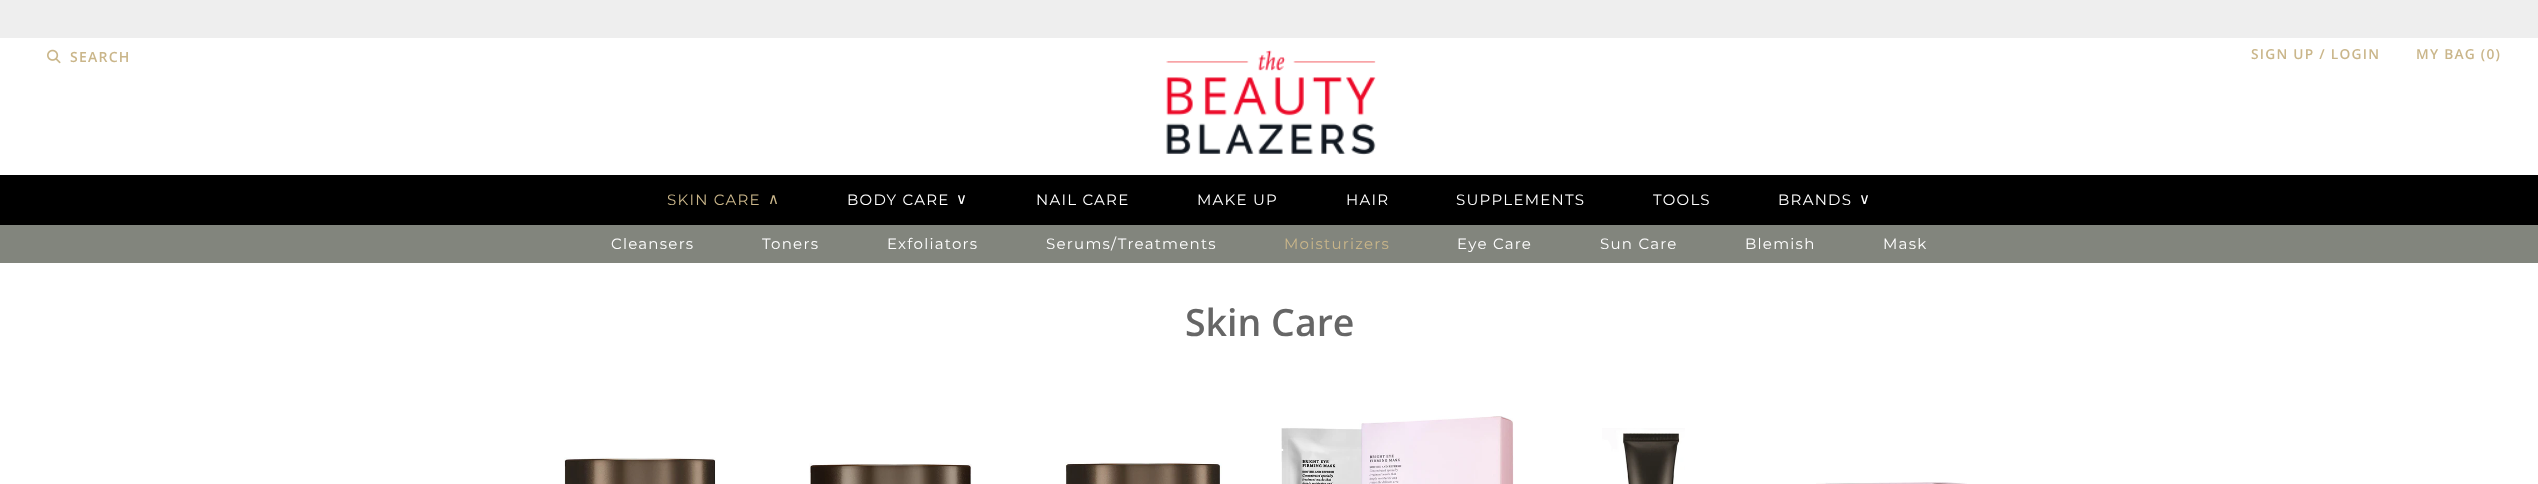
<svg xmlns="http://www.w3.org/2000/svg" width="2538" height="484">
<style>
.a{font:600 14px Open Sans;letter-spacing:1.25px;fill:#cab68a}
.b{font:600 13.75px Open Sans;letter-spacing:1.25px;fill:#cab68a}
.c{font:15px Montserrat;letter-spacing:1.25px;fill:#cab68a}
.d{font:15px DejaVu Sans;letter-spacing:1.25px;fill:#cab68a}
.e{font:15px Montserrat;letter-spacing:1.25px;fill:#fff}
.f{font:15px DejaVu Sans;letter-spacing:1.25px;fill:#fff}
.g{font:600 37.5px Open Sans;fill:#666}
</style>
<rect width="100%" height="100%" fill="#fff"/>
<path fill="#eee" d="M0 0h2538v38H0z"/>
<image href="1.png" x="47" y="49" width="14" height="15"/>
<image href="2.png" x="1166" y="50" width="210" height="105"/>
<path fill="#000" d="M0 175h2538v50H0z"/>
<path fill="#82857d" d="M0 225h2538v38H0z"/>
<image href="3.png" x="564" y="457" width="152" height="27"/>
<image href="4.png" x="809" y="463" width="163" height="21"/>
<image href="5.png" x="1065" y="462" width="157" height="22"/>
<image href="6.png" x="1281" y="416" width="233" height="68"/>
<image href="7.png" x="1602" y="428" width="83" height="56"/>
<image href="8.png" x="1816" y="482" width="151" height="2"/>
<text class="a" x="70" y="62">SEARCH</text>
<text class="b" x="2251" y="59">SIGN UP / LOGIN</text>
<text class="b" x="2416" y="59">MY BAG (0)</text>
<text class="c" x="667" y="205">SKIN CARE</text>
<text class="d" x="768" y="204">∧</text>
<text class="e" x="847" y="205">BODY CARE</text>
<text class="f" x="956" y="204">∨</text>
<text class="e" x="1036" y="205">NAIL CARE</text>
<text class="e" x="1197" y="205">MAKE UP</text>
<text class="e" x="1346" y="205">HAIR</text>
<text class="e" x="1456" y="205">SUPPLEMENTS</text>
<text class="e" x="1653" y="205">TOOLS</text>
<text class="e" x="1778" y="205">BRANDS</text>
<text class="f" x="1859" y="204">∨</text>
<text class="e" x="611" y="249">Cleansers</text>
<text class="e" x="762" y="249">Toners</text>
<text class="e" x="887" y="249">Exfoliators</text>
<text class="e" x="1046" y="249">Serums/Treatments</text>
<text class="c" x="1284" y="249">Moisturizers</text>
<text class="e" x="1457" y="249">Eye Care</text>
<text class="e" x="1600" y="249">Sun Care</text>
<text class="e" x="1745" y="249">Blemish</text>
<text class="e" x="1883" y="249">Mask</text>
<text class="g" x="1185" y="336">Skin Care</text>
</svg>
